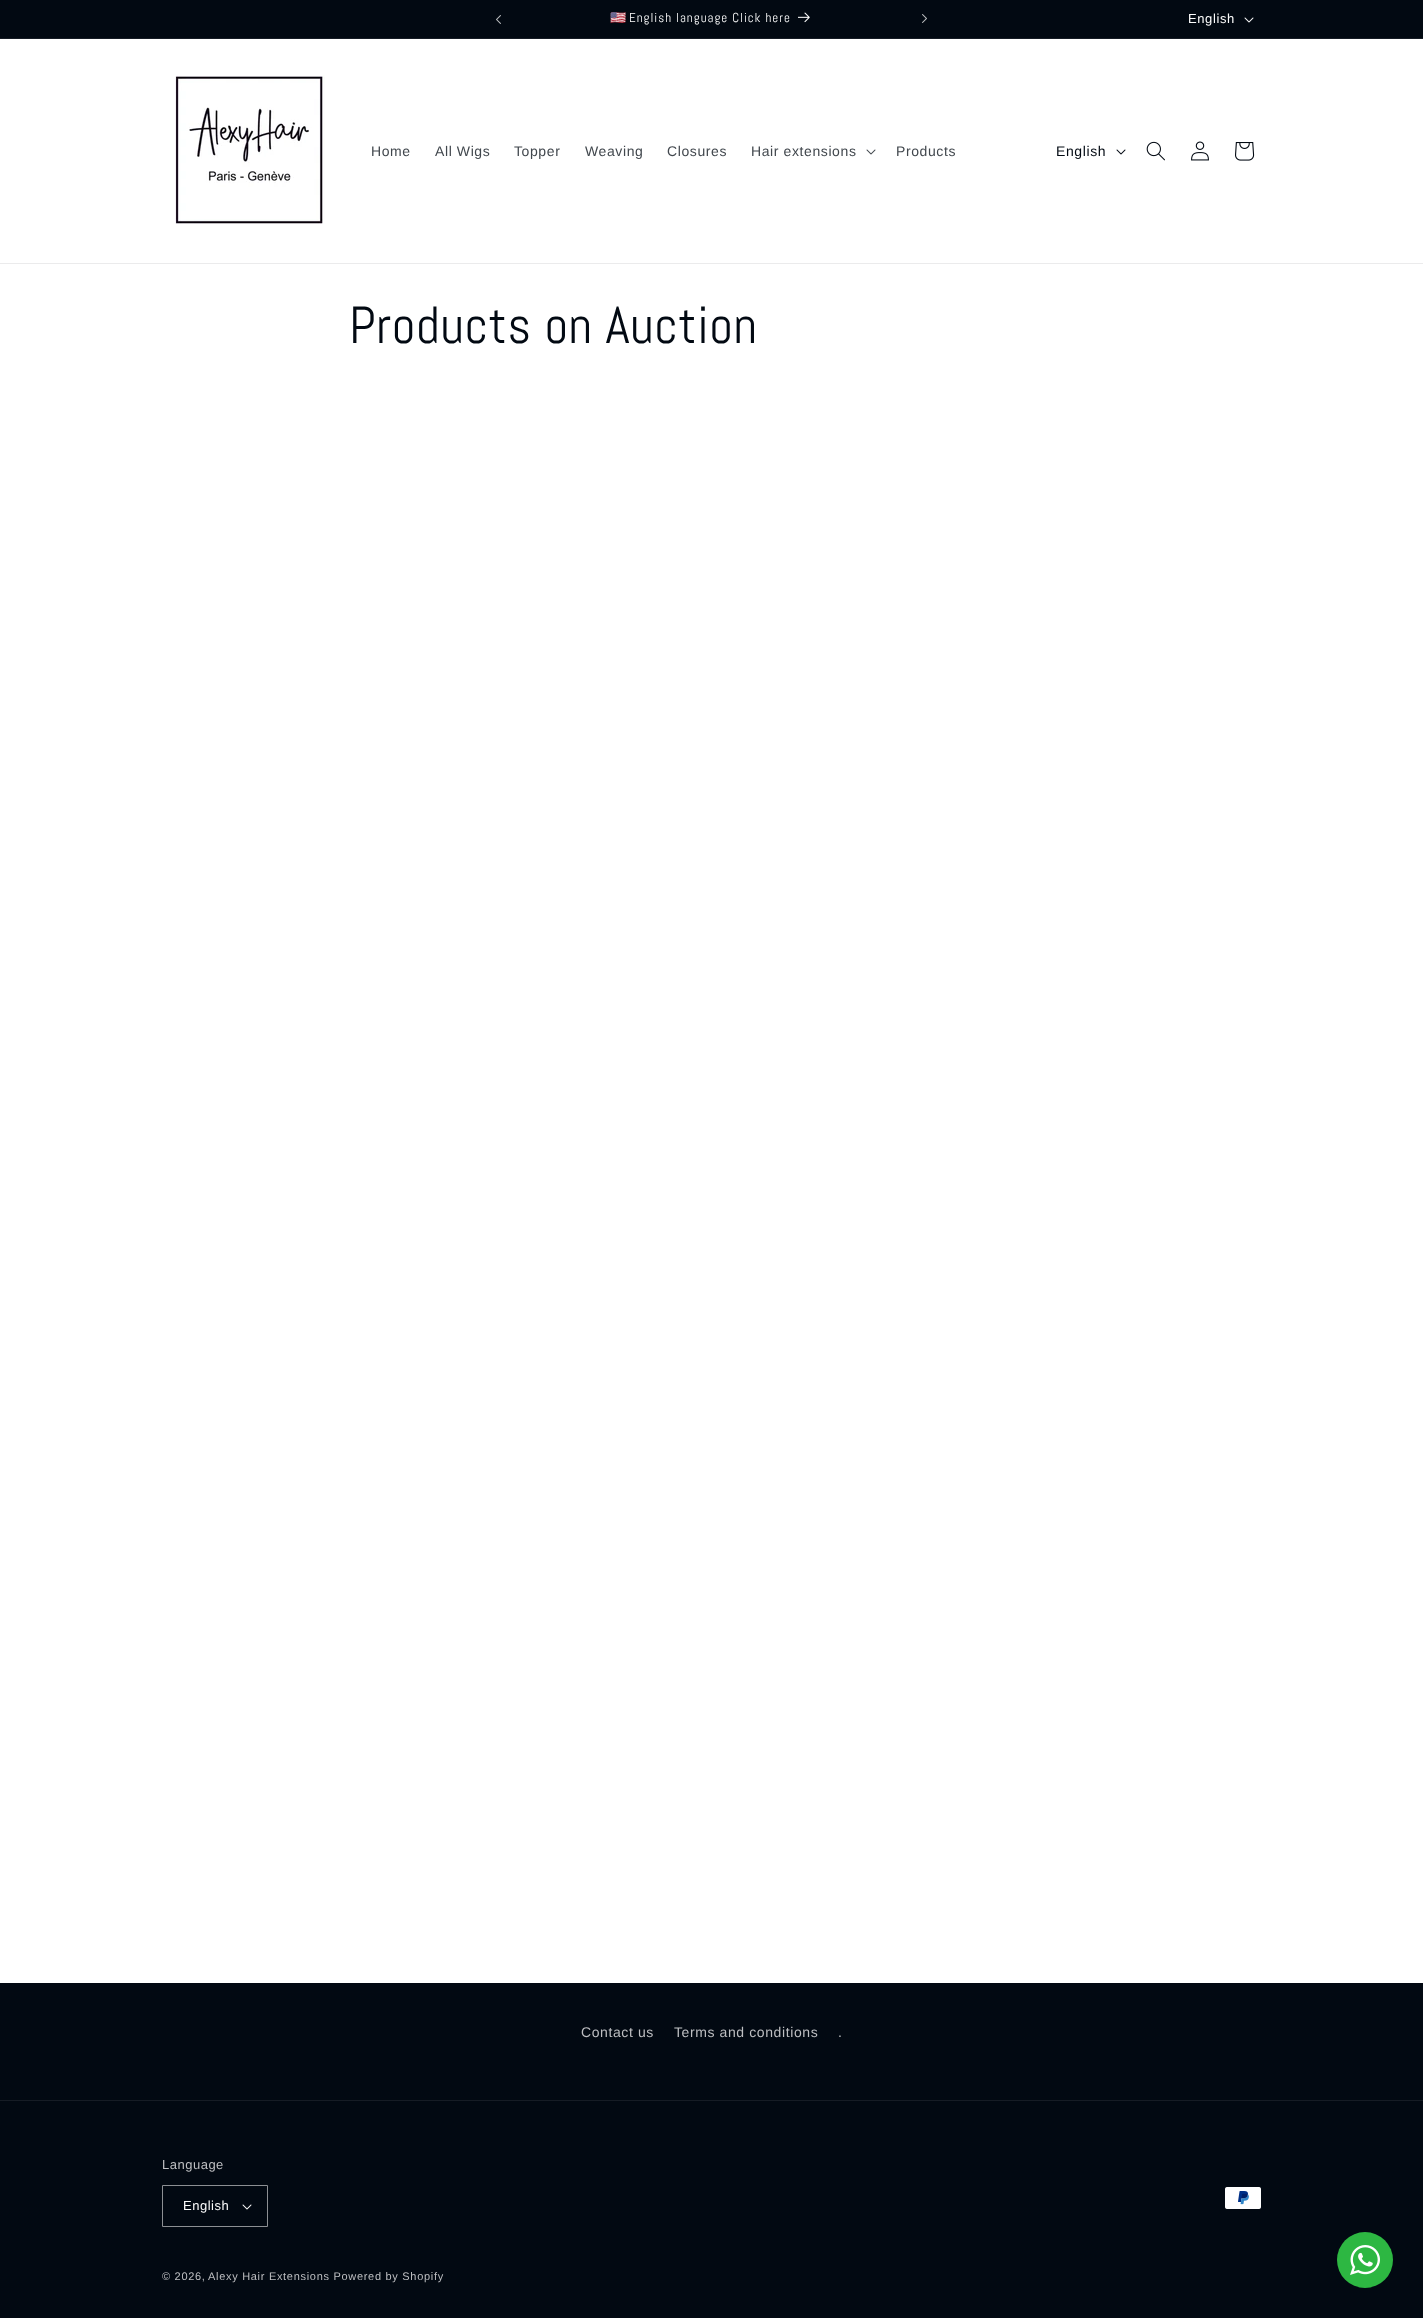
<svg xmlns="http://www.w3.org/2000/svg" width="1423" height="2318">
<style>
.a{font:13px Noto Color Emoji;letter-spacing:1px;fill:#fcfcfc}
.b{font:13px Abel;letter-spacing:1px;fill:#fcfcfc}
.c{font:13px Arimo;letter-spacing:0.6px;fill:#fcfcfc}
.d{font:14px Arimo;letter-spacing:0.6px;fill:#41474d}
.e{font:14px Arimo;letter-spacing:0.6px;fill:#020912}
.f{font:52px Abel;letter-spacing:0.6px;fill:#020912}
.g{font:14px Arimo;letter-spacing:0.6px;fill:#bebfc2}
.h{font:13px Arimo;letter-spacing:0.5px;fill:#bebfc2}
.i{font:13px Arimo;letter-spacing:0.5px;fill:#fcfcfc}
.j{font:11px Arimo;letter-spacing:0.7px;fill:#bebfc2}
</style>
<rect width="100%" height="100%" fill="#fff"/>
<path fill="#020912" d="M0 0h1423v38H0z"/>
<path fill="#161c25" d="M0 38h1423v1H0z"/>
<image href="1.png" x="496" y="15" width="5" height="9"/>
<image href="2.png" x="798" y="12" width="12" height="11"/>
<image href="3.png" x="922" y="14" width="5" height="9"/>
<image href="4.png" x="1244" y="17" width="10" height="6"/>
<path fill="#ebebec" d="M0 263h1423v1H0z"/>
<image href="5.png" x="175" y="75" width="150" height="149"/>
<image href="6.png" x="866" y="149" width="10" height="6"/>
<image href="7.png" x="1116" y="149" width="10" height="6"/>
<image href="8.png" x="1146" y="141" width="19" height="20"/>
<image href="9.png" x="1191" y="141" width="18" height="20"/>
<image href="10.png" x="1235" y="142" width="20" height="19"/>
<path fill="#020912" d="M0 1983h1423v335H0z"/>
<path fill="#161c25" d="M0 2100h1423v1H0z"/>
<image href="4.png" x="242" y="2204" width="10" height="6"/>
<path fill="none" stroke="#8c8f93" d="M162.5 2185.5h105v41H162.5z"/>
<image href="11.png" x="1225" y="2187" width="36" height="22"/>
<circle fill="#2db742" cx="1365" cy="2260" r="28"/>
<image href="12.png" x="1350" y="2245" width="30" height="30"/>
<text class="a" x="610" y="22">🇺🇸</text>
<text class="b" x="629" y="22">English language Click here</text>
<text class="c" x="1188" y="23">English</text>
<text class="d" x="371" y="156">Home</text>
<text class="d" x="435" y="156">All Wigs</text>
<text class="d" x="514" y="156">Topper</text>
<text class="d" x="585" y="156">Weaving</text>
<text class="d" x="667" y="156">Closures</text>
<text class="d" x="751" y="156">Hair extensions</text>
<text class="d" x="896" y="156">Products</text>
<text class="e" x="1056" y="156">English</text>
<text class="f" x="349" y="343">Products on Auction</text>
<text class="g" x="581" y="2037">Contact us</text>
<text class="g" x="674" y="2037">Terms and conditions</text>
<text class="g" x="838" y="2037">.</text>
<text class="h" x="162" y="2169">Language</text>
<text class="i" x="183" y="2210">English</text>
<text class="j" x="162" y="2280">© 2026,</text>
<text class="j" x="208" y="2280">Alexy Hair Extensions Powered by Shopify</text>
</svg>
